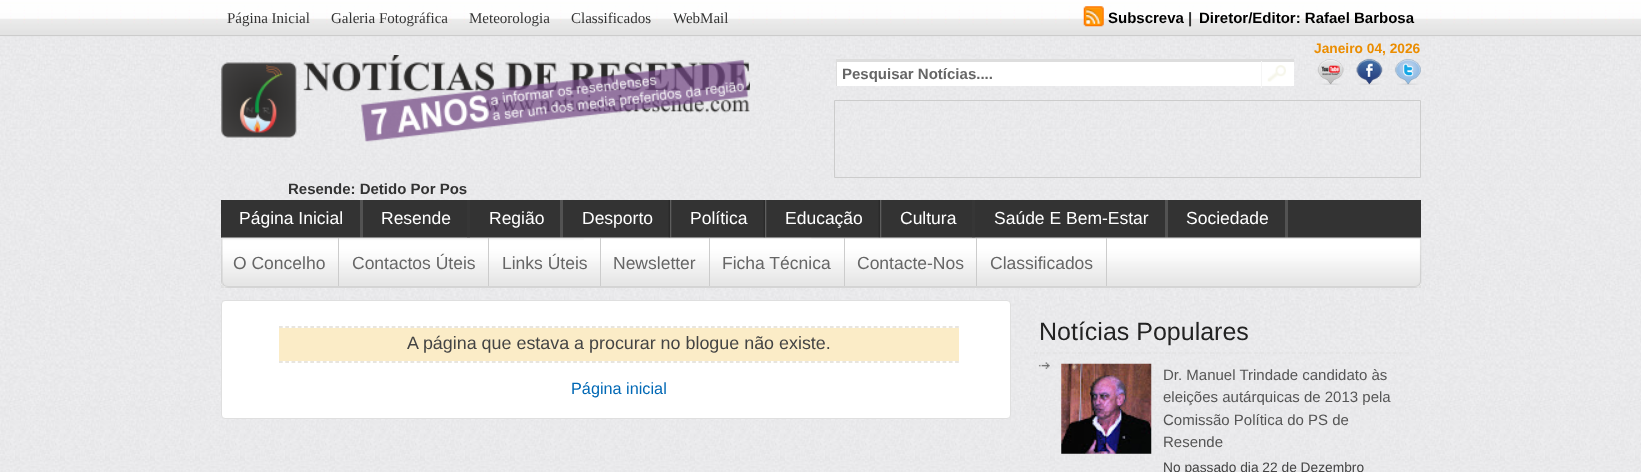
<svg xmlns="http://www.w3.org/2000/svg" width="1641" height="472">
<style>
.a{font:15px Liberation Serif;fill:#333}
.b{font:bold 15px Liberation Sans;fill:#000}
.c{font:bold 15px Liberation Sans;fill:#333}
.d{font:bold 13.75px Liberation Sans;fill:#eb8d00}
.e{font:bold 15px Liberation Sans;fill:#666}
.f{font:17.5px Liberation Sans;fill:#fff}
.g{font:17.5px Liberation Sans;fill:#666}
.h{font:17.9px Liberation Sans;fill:#444}
.i{font:16.25px Liberation Sans;fill:#0068b5}
.j{font:25px Liberation Sans;fill:#222}
.k{font:15px Liberation Sans;fill:#555}
.l{font:13.75px Liberation Sans;fill:#444}
</style>
<defs>
<clipPath id="clip1"><path d="M843 65h412v18H843z"/></clipPath>
</defs>
<rect width="100%" height="100%" fill="#fff"/>
<image href="1.png" x="0" y="36" width="1641" height="436"/>
<image href="2.png" x="0" y="0" width="1641" height="37"/>
<path fill="#ccc" d="M0 35h1641v1H0z"/>
<image href="3.png" x="1083" y="6" width="21" height="21"/>
<image href="4.png" x="221" y="55" width="529" height="87"/>
<path fill="#fff" d="M837 62h457v24H837z"/>
<path fill="#ddd" d="M836 59h458v3H836z"/>
<path fill="#ddd" d="M836 59h1v27H836z"/>
<path fill="#f5f5f5" d="M1261 61h1v27H1261z"/>
<image href="5.png" x="1267" y="65" width="19" height="17"/>
<image href="6.png" x="1317" y="59" width="27" height="26"/>
<image href="7.png" x="1356" y="58" width="27" height="27"/>
<image href="8.png" x="1395" y="59" width="26" height="26"/>
<path fill="none" stroke="#ccc" d="M834.5 100.5h586v77H834.5z"/>
<path fill="#333" d="M221 200h1200v38H221z"/>
<path fill="#dfdfdf" d="M221 238h1200v50H221z"/>
<image href="11.png" x="221" y="237" width="1201" height="51"/>
<path fill="#afafaf40" d="M360 200h3v38H360z"/>
<path fill="#40404040" d="M467 200h3v38H467z"/>
<path fill="#afafaf40" d="M560 200h3v38H560z"/>
<image href="9.png" x="668" y="200" width="4" height="38"/>
<image href="9.png" x="763" y="200" width="4" height="38"/>
<image href="10.png" x="878" y="200" width="4" height="38"/>
<path fill="#40404040" d="M972 200h3v38H972z"/>
<path fill="#afafaf40" d="M1165 200h3v38H1165z"/>
<path fill="#afafaf40" d="M1285 200h3v38H1285z"/>
<path fill="#ccc" d="M338 238h1v48H338z"/>
<path fill="#ccc" d="M488 238h1v48H488z"/>
<path fill="#ccc" d="M600 238h1v48H600z"/>
<path fill="#ccc" d="M709 238h1v48H709z"/>
<path fill="#ccc" d="M844 238h1v48H844z"/>
<path fill="#ccc" d="M976 238h1v48H976z"/>
<path fill="#ccc" d="M1106 238h1v48H1106z"/>
<rect fill="#fff" stroke="#dfdfdf" x="221.5" y="300.5" width="789" height="118" rx="3.5"/>
<path fill="none" stroke="#d1ccc0" stroke-width="1.2" stroke-dasharray="3.75 2.51" d="M279 327h680"/>
<path fill="none" stroke="#d1ccc0" stroke-width="1.2" stroke-dasharray="3.75 2.51" d="M279 362h680"/>
<path fill="#fbecc7" d="M279 328h680v33H279z"/>
<path fill="none" stroke="#dfdfdf" stroke-width="1.2" stroke-dasharray="3.75 2.54" d="M1034 353h375"/>
<image href="12.png" x="1038" y="362" width="12" height="7"/>
<image href="13.png" x="1061" y="363" width="91" height="91"/>
<text class="a" x="227" y="23">Página Inicial</text>
<text class="a" x="331" y="23">Galeria Fotográfica</text>
<text class="a" x="469" y="23">Meteorologia</text>
<text class="a" x="571" y="23">Classificados</text>
<text class="a" x="673" y="23">WebMail</text>
<text class="b" x="1108" y="23">Subscreva</text>
<text class="c" x="1188" y="23">|</text>
<text class="b" x="1199" y="23">Diretor/Editor: Rafael Barbosa</text>
<text class="d" x="1314" y="53">Janeiro 04, 2026</text>
<g clip-path="url(#clip1)">
<text class="e" x="842" y="79">Pesquisar Notícias....</text>
</g>
<text class="c" x="288" y="194">Resende: Detido Por Pos</text>
<text class="f" x="239" y="224">Página Inicial</text>
<text class="f" x="381" y="224">Resende</text>
<text class="f" x="489" y="224">Região</text>
<text class="f" x="582" y="224">Desporto</text>
<text class="f" x="690" y="224">Política</text>
<text class="f" x="785" y="224">Educação</text>
<text class="f" x="900" y="224">Cultura</text>
<text class="f" x="994" y="224">Saúde E Bem-Estar</text>
<text class="f" x="1186" y="224">Sociedade</text>
<text class="g" x="233" y="269">O Concelho</text>
<text class="g" x="352" y="269">Contactos Úteis</text>
<text class="g" x="502" y="269">Links Úteis</text>
<text class="g" x="613" y="269">Newsletter</text>
<text class="g" x="722" y="269">Ficha Técnica</text>
<text class="g" x="857" y="269">Contacte-Nos</text>
<text class="g" x="990" y="269">Classificados</text>
<text class="h" x="407" y="349">A página que estava a procurar no blogue não existe.</text>
<text class="i" x="571" y="394">Página inicial</text>
<text class="j" x="1039" y="340">Notícias Populares</text>
<text class="k" x="1163" y="380">Dr. Manuel Trindade candidato às</text>
<text class="k" x="1163" y="402">eleições autárquicas de 2013 pela</text>
<text class="k" x="1163" y="425">Comissão Política do PS de</text>
<text class="k" x="1163" y="447">Resende</text>
<text class="l" x="1163" y="472">No passado dia 22 de Dezembro</text>
</svg>
